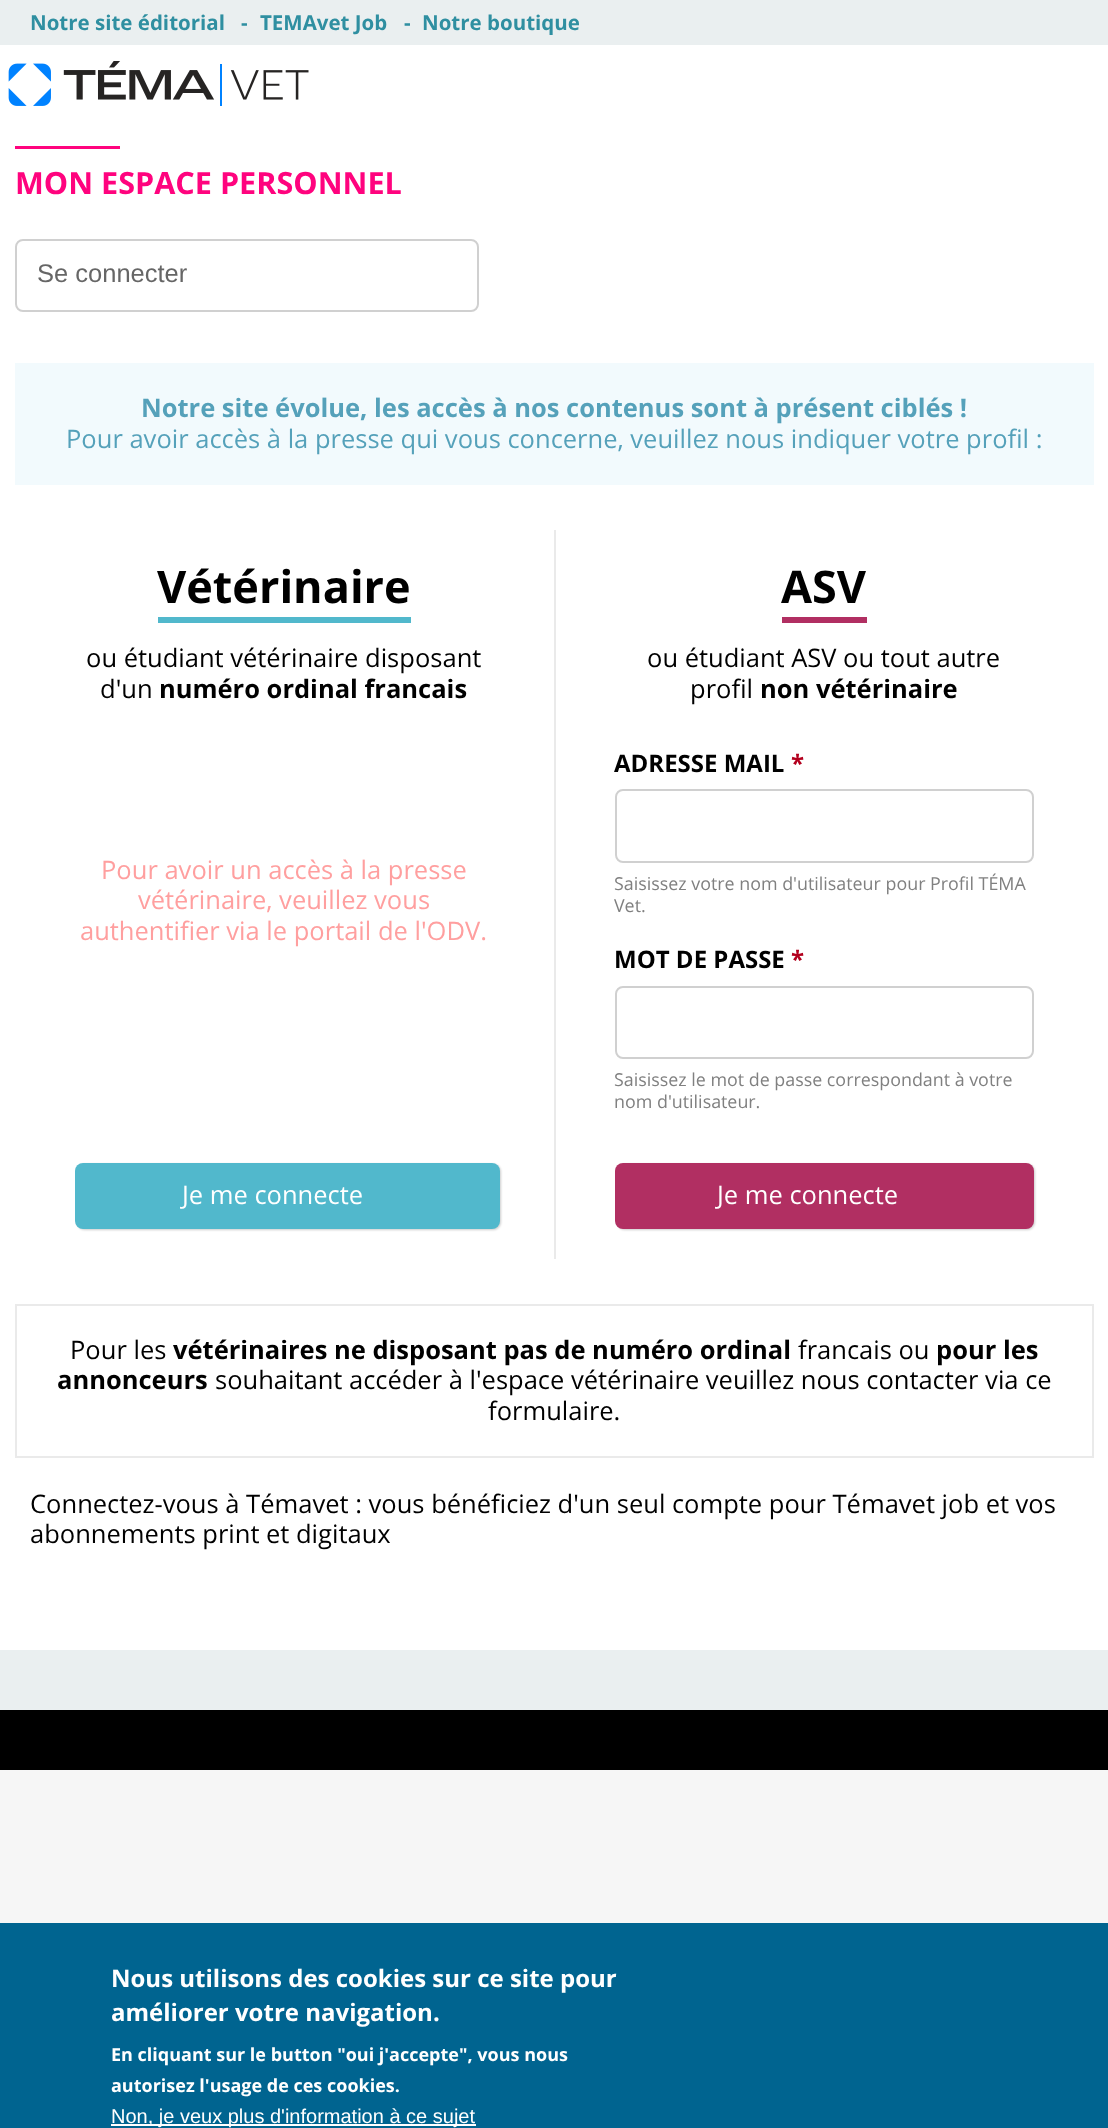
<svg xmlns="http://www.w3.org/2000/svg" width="1108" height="2128">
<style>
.a{font:bold 20.5px Open Sans;fill:#2f8fa1}
.b{font:bold 30.6px Open Sans;fill:#ff037e}
.c{font:25.5px Liberation Sans;fill:#666}
.d{font:bold 25.5px Open Sans;fill:#55a1ba}
.e{font:25.5px Open Sans;fill:#55a1ba}
.f{font:bold 45px Open Sans;fill:#000}
.g{font:25.5px Open Sans;fill:#000}
.h{font:bold 25.5px Open Sans;fill:#000}
.i{font:25.5px Open Sans;fill:#ff9f9f}
.j{font:25.5px Open Sans;fill:#fff}
.k{font:bold 24px Open Sans;fill:#000}
.l{font:bold 24px Open Sans;fill:#b3001e}
.m{font:17.85px Open Sans;fill:#808080}
.n{font:bold 24px Open Sans;fill:#fff}
.o{font:bold 18px Open Sans;fill:#fff}
.p{font:20px Liberation Sans;fill:#fff}
</style>
<rect width="100%" height="100%" fill="#f6f6f6"/>
<path fill="#fff" d="M0 45h1108v1605H0z"/>
<path fill="#eaeff0" d="M0 0h1108v45H0z"/>
<image href="1.png" x="8" y="61" width="301" height="45"/>
<path fill="#ff037e" d="M15 146h105v3H15z"/>
<rect fill="none" stroke="#d0d0d0" stroke-width="2" x="16" y="240" width="462" height="71" rx="7"/>
<path fill="#f2fafd" d="M15 363h1079v122H15z"/>
<path fill="#eaeaea" d="M554 530h2v729H554z"/>
<path fill="#51b8cc" d="M158 617h253v6H158z"/>
<rect fill="#00000033" filter="blur(1px)" x="77" y="1164" width="424" height="66" rx="8"/>
<rect fill="#51b8cc" x="75" y="1163" width="425" height="66" rx="8"/>
<path fill="#b12f62" d="M782 617h85v6H782z"/>
<rect fill="none" stroke="#d0d0d0" stroke-width="2" x="616" y="790" width="417" height="72" rx="7"/>
<rect fill="none" stroke="#d0d0d0" stroke-width="2" x="616" y="987" width="417" height="71" rx="7"/>
<rect fill="#00000033" filter="blur(1px)" x="617" y="1164" width="418" height="66" rx="8"/>
<rect fill="#b12f62" x="615" y="1163" width="419" height="66" rx="8"/>
<path fill="none" stroke="#eaeaea" stroke-width="2" d="M16 1305h1077v152H16z"/>
<path fill="#eaeff0" d="M0 1650h1108v60H0z"/>
<path fill="#000" d="M0 1710h1108v60H0z"/>
<path fill="#006490" d="M0 1923h1108v205H0z"/>
<path fill="#fff" d="M111 2124h365v2H111z"/>
<text class="a" x="30" y="30">Notre site éditorial</text>
<text class="a" x="241" y="30">-</text>
<text class="a" x="260" y="30">TEMAvet Job</text>
<text class="a" x="404" y="30">-</text>
<text class="a" x="422" y="30">Notre boutique</text>
<text class="b" x="15" y="194">MON ESPACE PERSONNEL</text>
<text class="c" x="37" y="282">Se connecter</text>
<text class="d" x="141" y="417">Notre site évolue, les accès à nos contenus sont à présent ciblés !</text>
<text class="e" x="66" y="448">Pour avoir accès à la presse qui vous concerne, veuillez nous indiquer votre profil :</text>
<text class="f" x="157" y="603">Vétérinaire</text>
<text class="g" x="86" y="667">ou étudiant vétérinaire disposant</text>
<text class="g" x="100" y="698">d'un</text>
<text class="h" x="159" y="698">numéro ordinal francais</text>
<text class="i" x="101" y="879">Pour avoir un accès à la presse</text>
<text class="i" x="138" y="909">vétérinaire, veuillez vous</text>
<text class="i" x="80" y="940">authentifier via le portail de l'ODV.</text>
<text class="j" x="182" y="1204">Je me connecte</text>
<text class="f" x="781" y="603">ASV</text>
<text class="g" x="647" y="667">ou étudiant ASV ou tout autre</text>
<text class="g" x="690" y="698">profil</text>
<text class="h" x="760" y="698">non vétérinaire</text>
<text class="k" x="614" y="772">ADRESSE MAIL</text>
<text class="l" x="791" y="772">*</text>
<text class="m" x="614" y="890">Saisissez votre nom d'utilisateur pour Profil TÉMA</text>
<text class="m" x="614" y="912">Vet.</text>
<text class="k" x="614" y="968">MOT DE PASSE</text>
<text class="l" x="791" y="968">*</text>
<text class="m" x="614" y="1086">Saisissez le mot de passe correspondant à votre</text>
<text class="m" x="614" y="1108">nom d'utilisateur.</text>
<text class="j" x="717" y="1204">Je me connecte</text>
<text class="g" x="70" y="1359">Pour les</text>
<text class="h" x="173" y="1359">vétérinaires ne disposant pas de numéro ordinal</text>
<text class="g" x="798" y="1359">francais ou</text>
<text class="h" x="936" y="1359">pour les</text>
<text class="h" x="57" y="1389">annonceurs</text>
<text class="g" x="215" y="1389">souhaitant accéder à l'espace vétérinaire veuillez nous contacter via ce</text>
<text class="g" x="488" y="1420">formulaire.</text>
<text class="g" x="30" y="1513">Connectez-vous à Témavet : vous bénéficiez d'un seul compte pour Témavet job et vos</text>
<text class="g" x="30" y="1543">abonnements print et digitaux</text>
<text class="n" x="111" y="1987">Nous utilisons des cookies sur ce site pour</text>
<text class="n" x="111" y="2021">améliorer votre navigation.</text>
<text class="o" x="111" y="2061">En cliquant sur le button "oui j'accepte", vous nous</text>
<text class="o" x="111" y="2092">autorisez l'usage de ces cookies.</text>
<text class="p" x="111" y="2123">Non, je veux plus d'information à ce sujet</text>
</svg>
